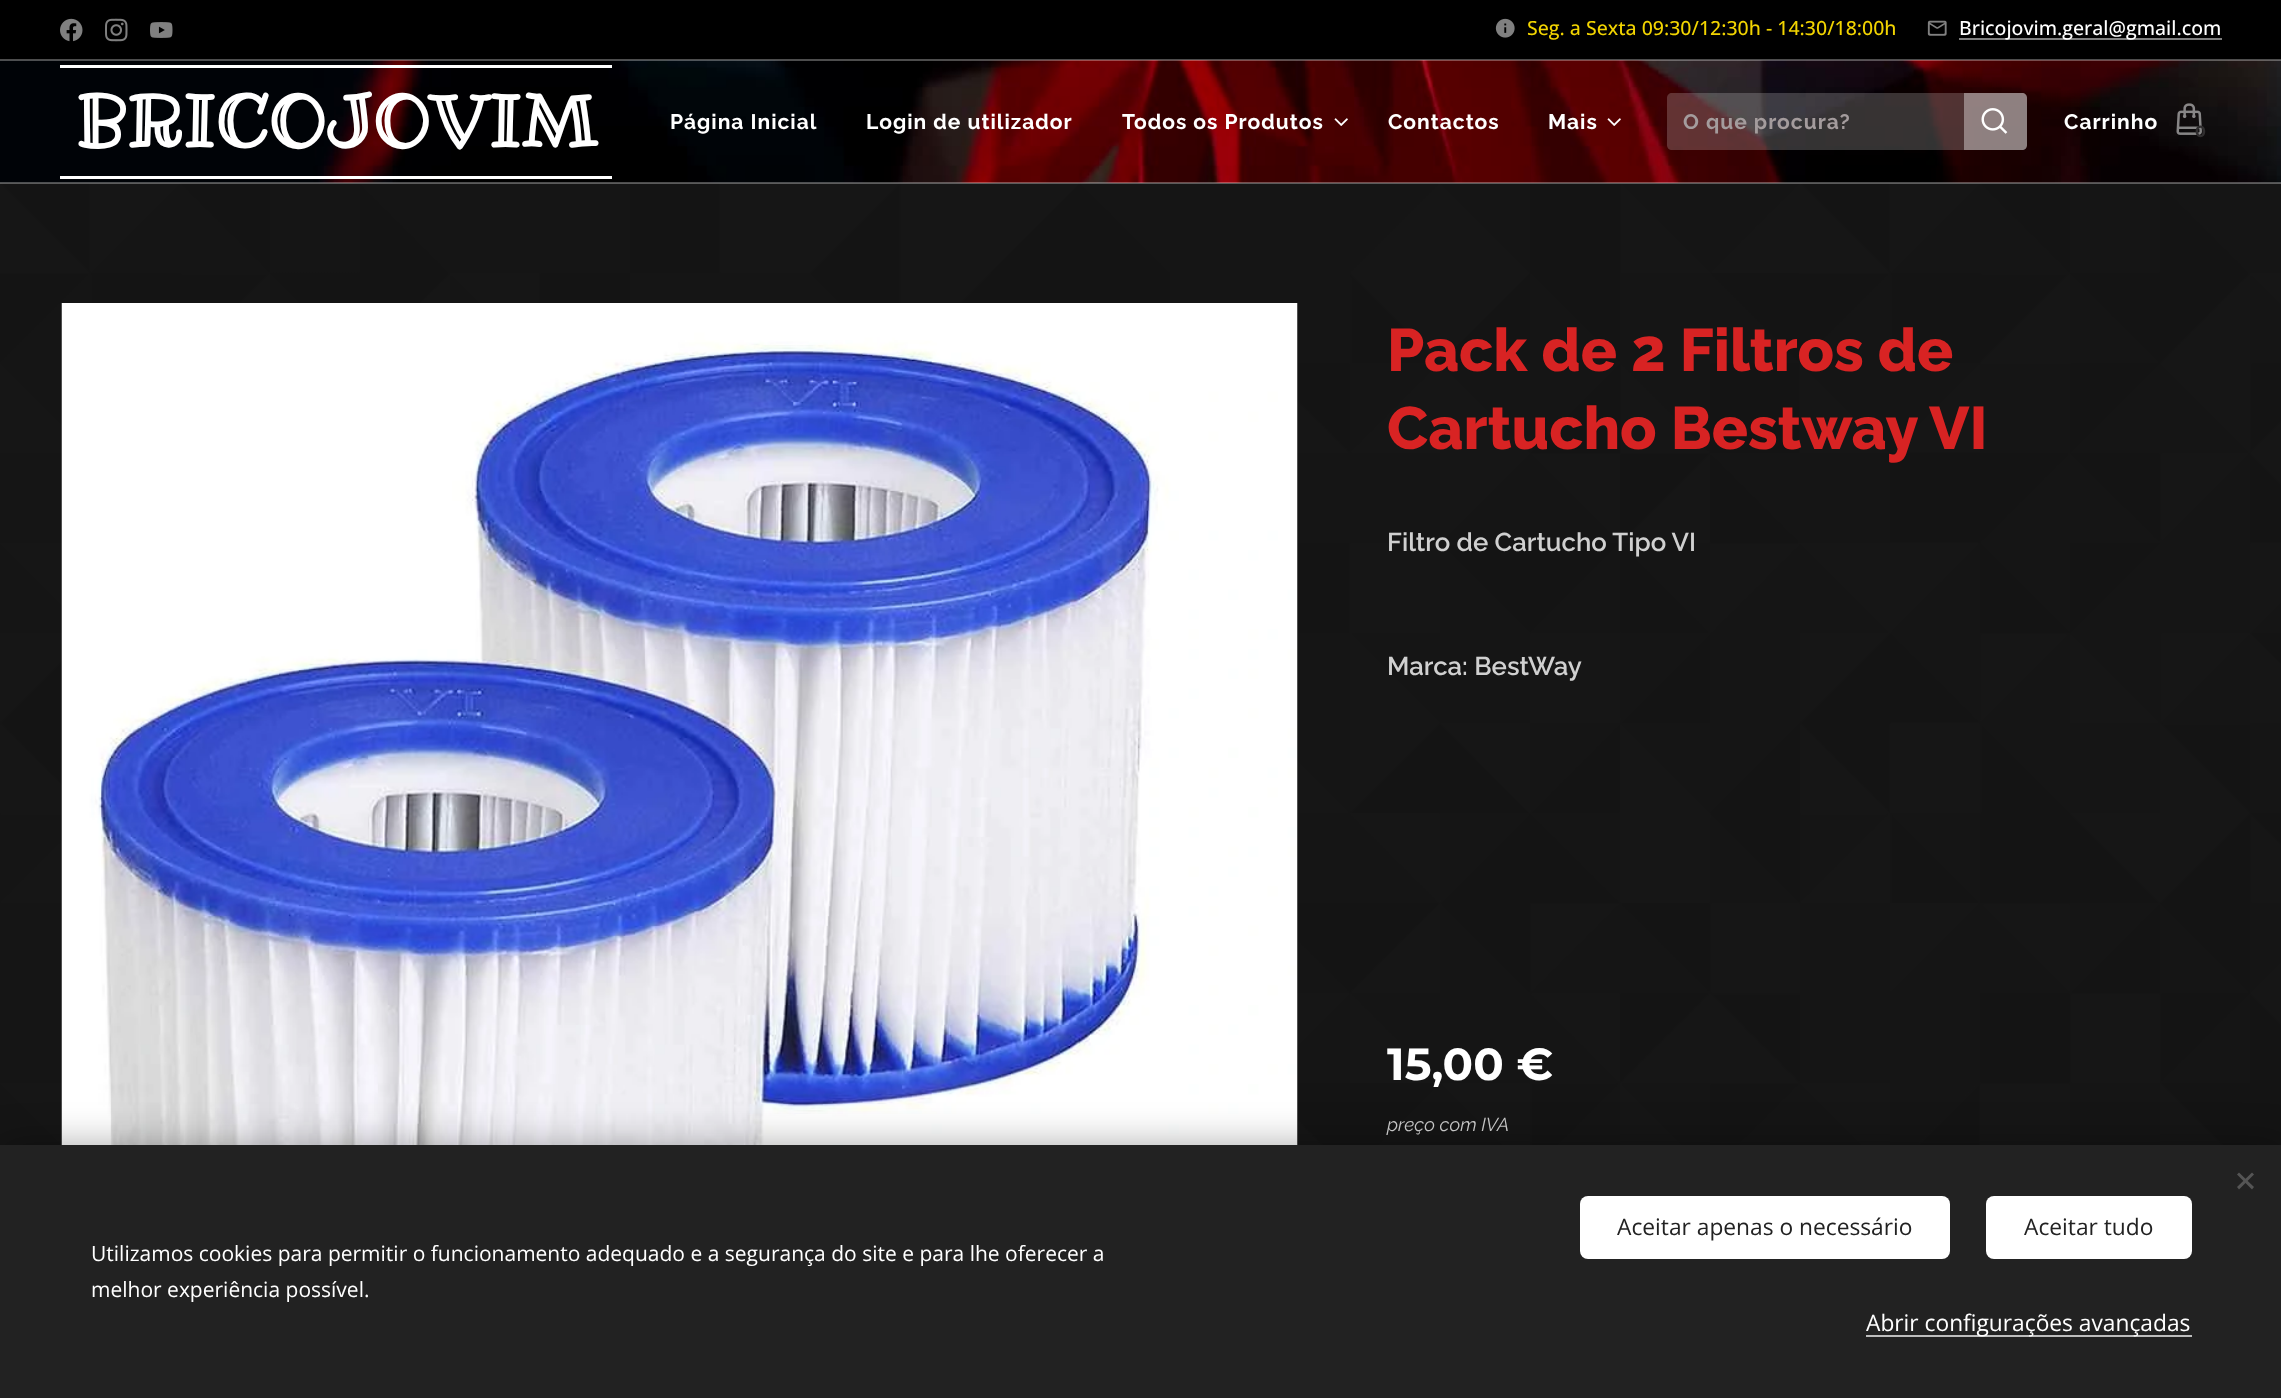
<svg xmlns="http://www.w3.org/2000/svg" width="2281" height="1398">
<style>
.a{font:500 19.5px Open Sans;fill:#f2d400}
.b{font:500 19.5px Open Sans;fill:#fff}
.c{font:bold 72px Ribeye Marrow;fill:#fff}
.d{font:bold 21px Raleway;letter-spacing:1px;fill:#fff}
.e{font:bold 21px Raleway;letter-spacing:1px;fill:#a49c9d}
.f{font:bold 16px Montserrat;fill:#302e2f}
.g{font:800 60px Raleway;fill:#d82323}
.h{font:600 25.75px Raleway;fill:#d0d0d0}
.i{font:bold 45px Montserrat;fill:#fff}
.j{font:italic 18.75px Raleway;fill:#c5c5c5}
.k{font:21px Open Sans;fill:#fff}
.l{font:22.75px Open Sans;fill:#222}
.m{font:22.75px Open Sans;fill:#fff}
</style>
<rect width="100%" height="100%" fill="#fff"/>
<path fill="#000" d="M0 0h2281v60H0z"/>
<image href="1.png" x="60" y="18" width="23" height="24"/>
<image href="2.png" x="105" y="18" width="23" height="24"/>
<image href="3.png" x="150" y="22" width="23" height="16"/>
<image href="4.png" x="1495" y="18" width="20" height="20"/>
<image href="5.png" x="1927" y="20" width="20" height="16"/>
<path fill="#808080" d="M1959 38h263v2H1959z"/>
<image href="6.png" x="0" y="60" width="2281" height="123"/>
<path fill="#ffffff4d" d="M0 59h2281v2H0z"/>
<path fill="#fff" d="M60 65h552v3H60z"/>
<path fill="#fff" d="M60 176h552v3H60z"/>
<image href="7.png" x="1334" y="118" width="14" height="8"/>
<image href="8.png" x="1607" y="118" width="14" height="8"/>
<path fill="#ffffff33" d="M1672 93h292v57h-292c-3 0-5-2-5-5v-47c0-3 2-5 5-5z"/>
<path fill="#ffffff80" d="M1964 93h58c3 0 5 2 5 5v47c0 3-2 5-5 5h-58z"/>
<image href="9.png" x="1981" y="108" width="27" height="26"/>
<image href="10.png" x="2176" y="103" width="26" height="32"/>
<image href="11.png" x="0" y="183" width="2281" height="962"/>
<path fill="#ffffff4d" d="M0 182h2281v2H0z"/>
<image href="12.png" x="61" y="303" width="1237" height="842"/>
<path fill="#00000054" filter="blur(19px)" d="M0 1145h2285v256H0z"/>
<path fill="#222" d="M0 1145h2281v253H0z"/>
<path fill="#555" d="M2237 1187l15-14.5l2 2l-15 15z"/>
<path fill="#555" d="M2239 1172.5l15 14.5l-2 2.5l-15-15z"/>
<rect fill="#fff" x="1580" y="1196" width="370" height="63" rx="8"/>
<rect fill="#fff" x="1986" y="1196" width="206" height="63" rx="8"/>
<path fill="#bdbdbd" d="M1866 1335h326v2H1866z"/>
<text class="a" x="1527" y="35">Seg. a Sexta 09:30/12:30h - 14:30/18:00h</text>
<text class="b" x="1959" y="35">Bricojovim.geral@gmail.com</text>
<text class="c" x="75" y="147">BRICOJOVIM</text>
<text class="d" x="670" y="129">Página Inicial</text>
<text class="d" x="866" y="129">Login de utilizador</text>
<text class="d" x="1122" y="129">Todos os Produtos</text>
<text class="d" x="1388" y="129">Contactos</text>
<text class="d" x="1548" y="129">Mais</text>
<text class="e" x="1683" y="129">O que procura?</text>
<text class="d" x="2064" y="129">Carrinho</text>
<text class="f" x="2195" y="137">0</text>
<text class="g" x="1387" y="371">Pack de 2 Filtros de</text>
<text class="g" x="1387" y="449">Cartucho Bestway VI</text>
<text class="h" x="1387" y="551">Filtro de Cartucho Tipo VI</text>
<text class="h" x="1387" y="675">Marca: BestWay</text>
<text class="i" x="1387" y="1080">15,00 €</text>
<text class="j" x="1387" y="1131">preço com IVA</text>
<text class="k" x="91" y="1261">Utilizamos cookies para permitir o funcionamento adequado e a segurança do site e para lhe oferecer a</text>
<text class="k" x="91" y="1297">melhor experiência possível.</text>
<text class="l" x="1617" y="1235">Aceitar apenas o necessário</text>
<text class="l" x="2024" y="1235">Aceitar tudo</text>
<text class="m" x="1866" y="1331">Abrir configurações avançadas</text>
</svg>
